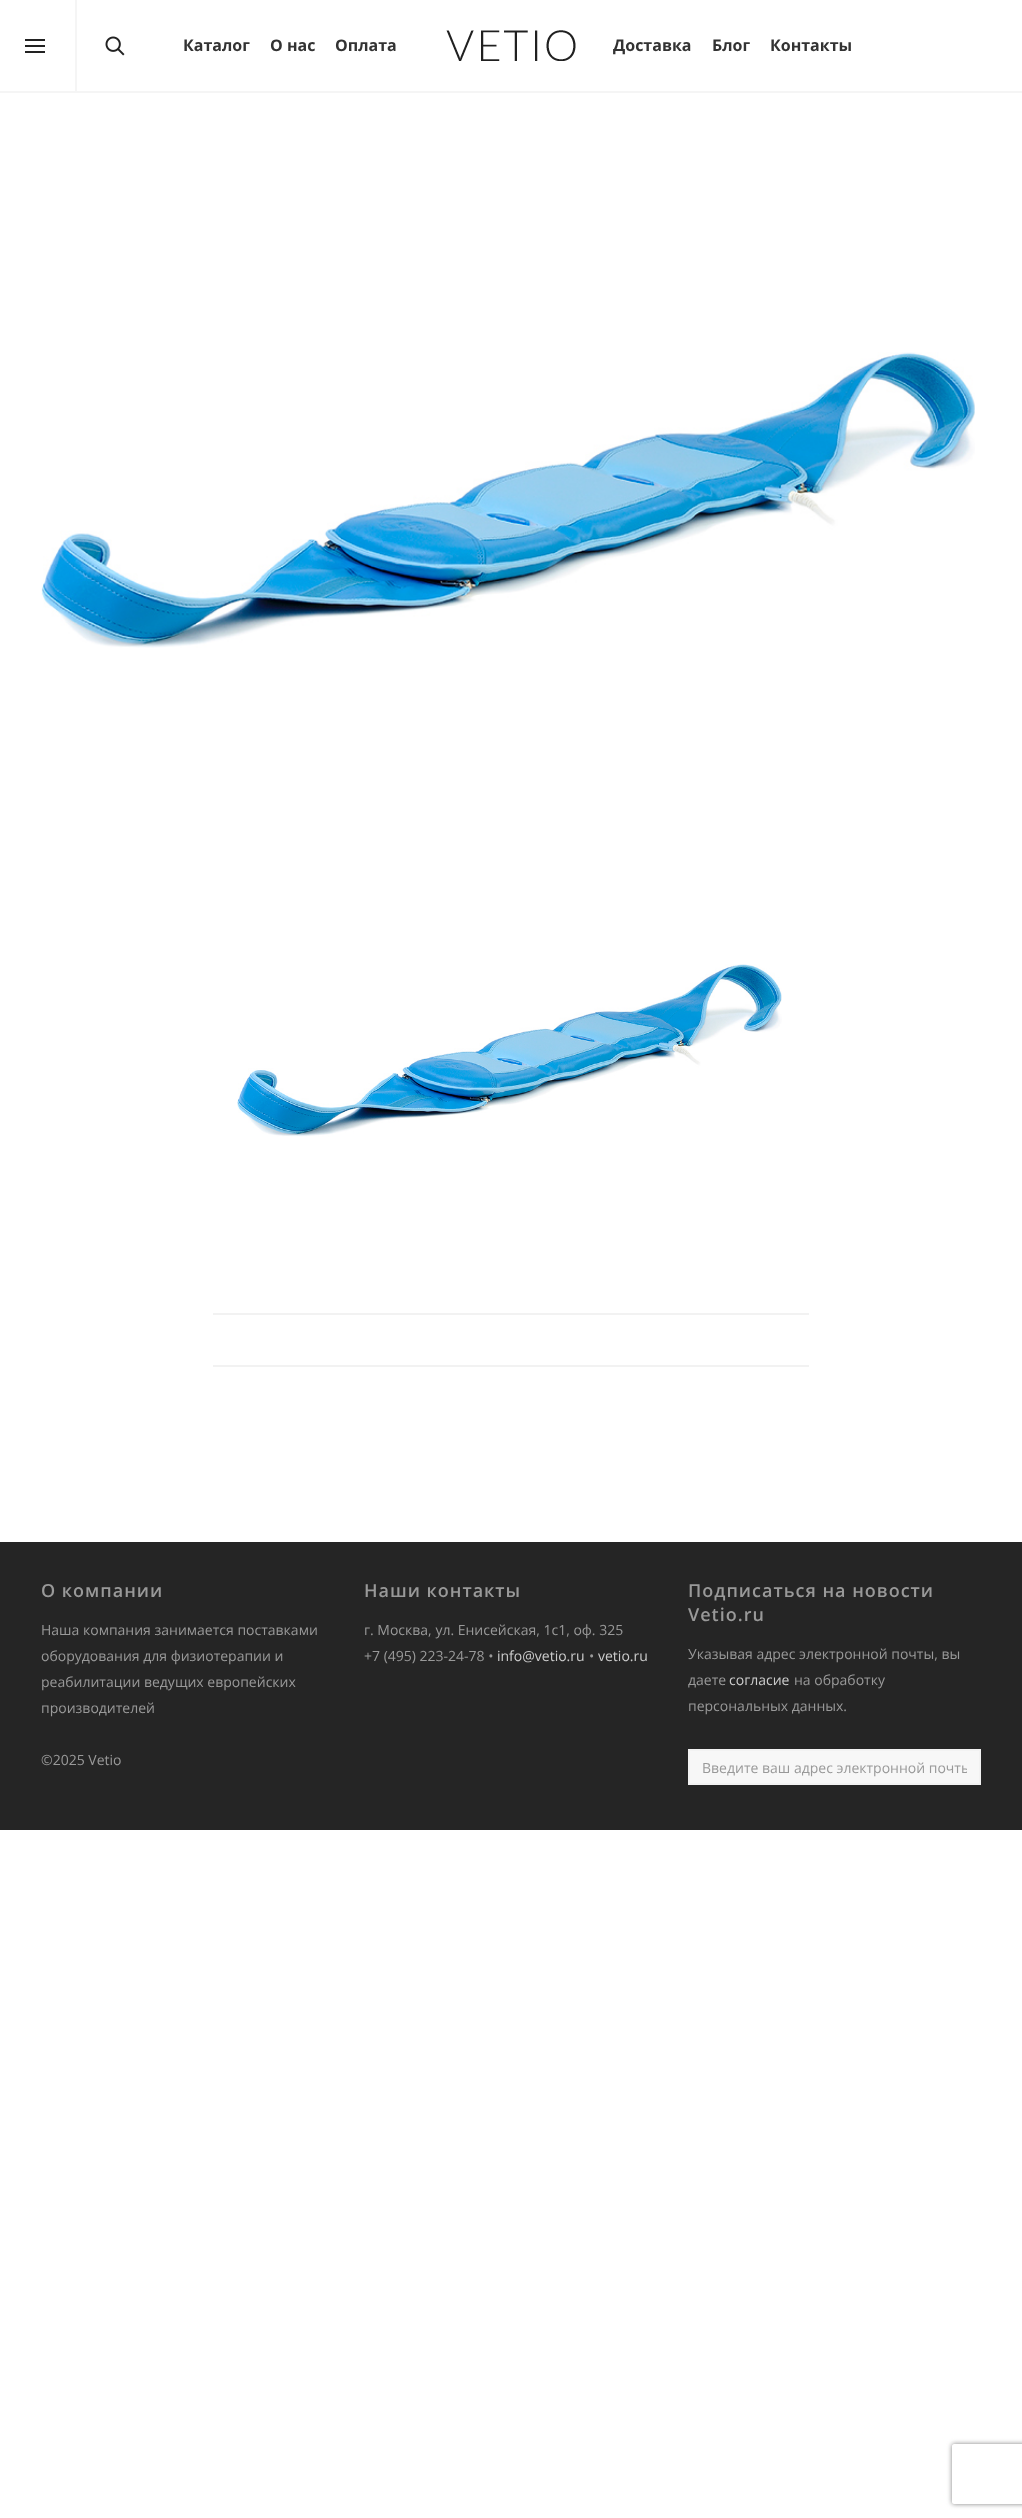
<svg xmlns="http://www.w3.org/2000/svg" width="1022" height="2518">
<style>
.a{font:bold 16px Open Sans;fill:#333}
.b{font:600 18px Open Sans;letter-spacing:1px;fill:#999}
.c{font:14px Open Sans;fill:#999}
.d{font:14px Open Sans;fill:#ccc}
</style>
<defs>
<clipPath id="clip1"><path d="M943 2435h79v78h-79zm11 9h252c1 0 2 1 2 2v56c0 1-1 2-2 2h-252c-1 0-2-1-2-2v-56c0-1 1-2 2-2z" clip-rule="evenodd"/></clipPath>
<clipPath id="clip2"><path d="M702 1758h265v19H702z"/></clipPath>
</defs>
<rect width="100%" height="100%" fill="#fff"/>
<path fill="#f5f5f5" d="M0 91h1022v2H0z"/>
<path fill="#f5f5f5" d="M75 0h2v91H75z"/>
<path fill="#222" d="M25 45h20v2H25z"/>
<path fill="#222" d="M25 39h20v2H25z"/>
<path fill="#222" d="M25 51h20v2H25z"/>
<image href="1.png" x="105" y="36" width="20" height="20"/>
<image href="2.png" x="446" y="30" width="130" height="31"/>
<image href="3.png" x="41" y="352" width="934" height="296"/>
<image href="4.png" x="237" y="964" width="545" height="173"/>
<path fill="#f2f2f2" d="M213 1313h596v2H213z"/>
<path fill="#f2f2f2" d="M213 1365h596v2H213z"/>
<path fill="#252525" d="M0 1542h1022v288H0z"/>
<path fill="#f7f7f7" stroke="#f2f2f2" stroke-width="2" d="M689 1750h291v34H689z"/>
<g clip-path="url(#clip1)">
<rect fill="#808080" filter="blur(2.5px)" x="952" y="2444" width="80" height="60" rx="2"/>
</g>
<text class="a" x="183" y="51">Каталог</text>
<text class="a" x="270" y="51">О нас</text>
<text class="a" x="335" y="51">Оплата</text>
<text class="a" x="613" y="51">Доставка</text>
<text class="a" x="712" y="51">Блог</text>
<text class="a" x="770" y="51">Контакты</text>
<text class="b" x="41" y="1597">О компании</text>
<text class="c" x="41" y="1635">Наша компания занимается поставками</text>
<text class="c" x="41" y="1661">оборудования для физиотерапии и</text>
<text class="c" x="41" y="1687">реабилитации ведущих европейских</text>
<text class="c" x="41" y="1713">производителей</text>
<text class="c" x="41" y="1765">©2025 Vetio</text>
<text class="b" x="364" y="1597">Наши контакты</text>
<text class="c" x="364" y="1635">г. Москва, ул. Енисейская, 1с1, оф. 325</text>
<text class="c" x="364" y="1661">+7 (495) 223-24-78 •</text>
<text class="d" x="497" y="1661">info@vetio.ru</text>
<text class="c" x="589" y="1661">•</text>
<text class="d" x="598" y="1661">vetio.ru</text>
<text class="b" x="688" y="1597">Подписаться на новости</text>
<text class="b" x="688" y="1621">Vetio.ru</text>
<text class="c" x="688" y="1659">Указывая адрес электронной почты, вы</text>
<text class="c" x="688" y="1685">даете</text>
<text class="d" x="729" y="1685">согласие</text>
<text class="c" x="794" y="1685">на обработку</text>
<text class="c" x="688" y="1711">персональных данных.</text>
<g clip-path="url(#clip2)">
<text class="c" x="702" y="1773">Введите ваш адрес электронной почты</text>
</g>
</svg>
